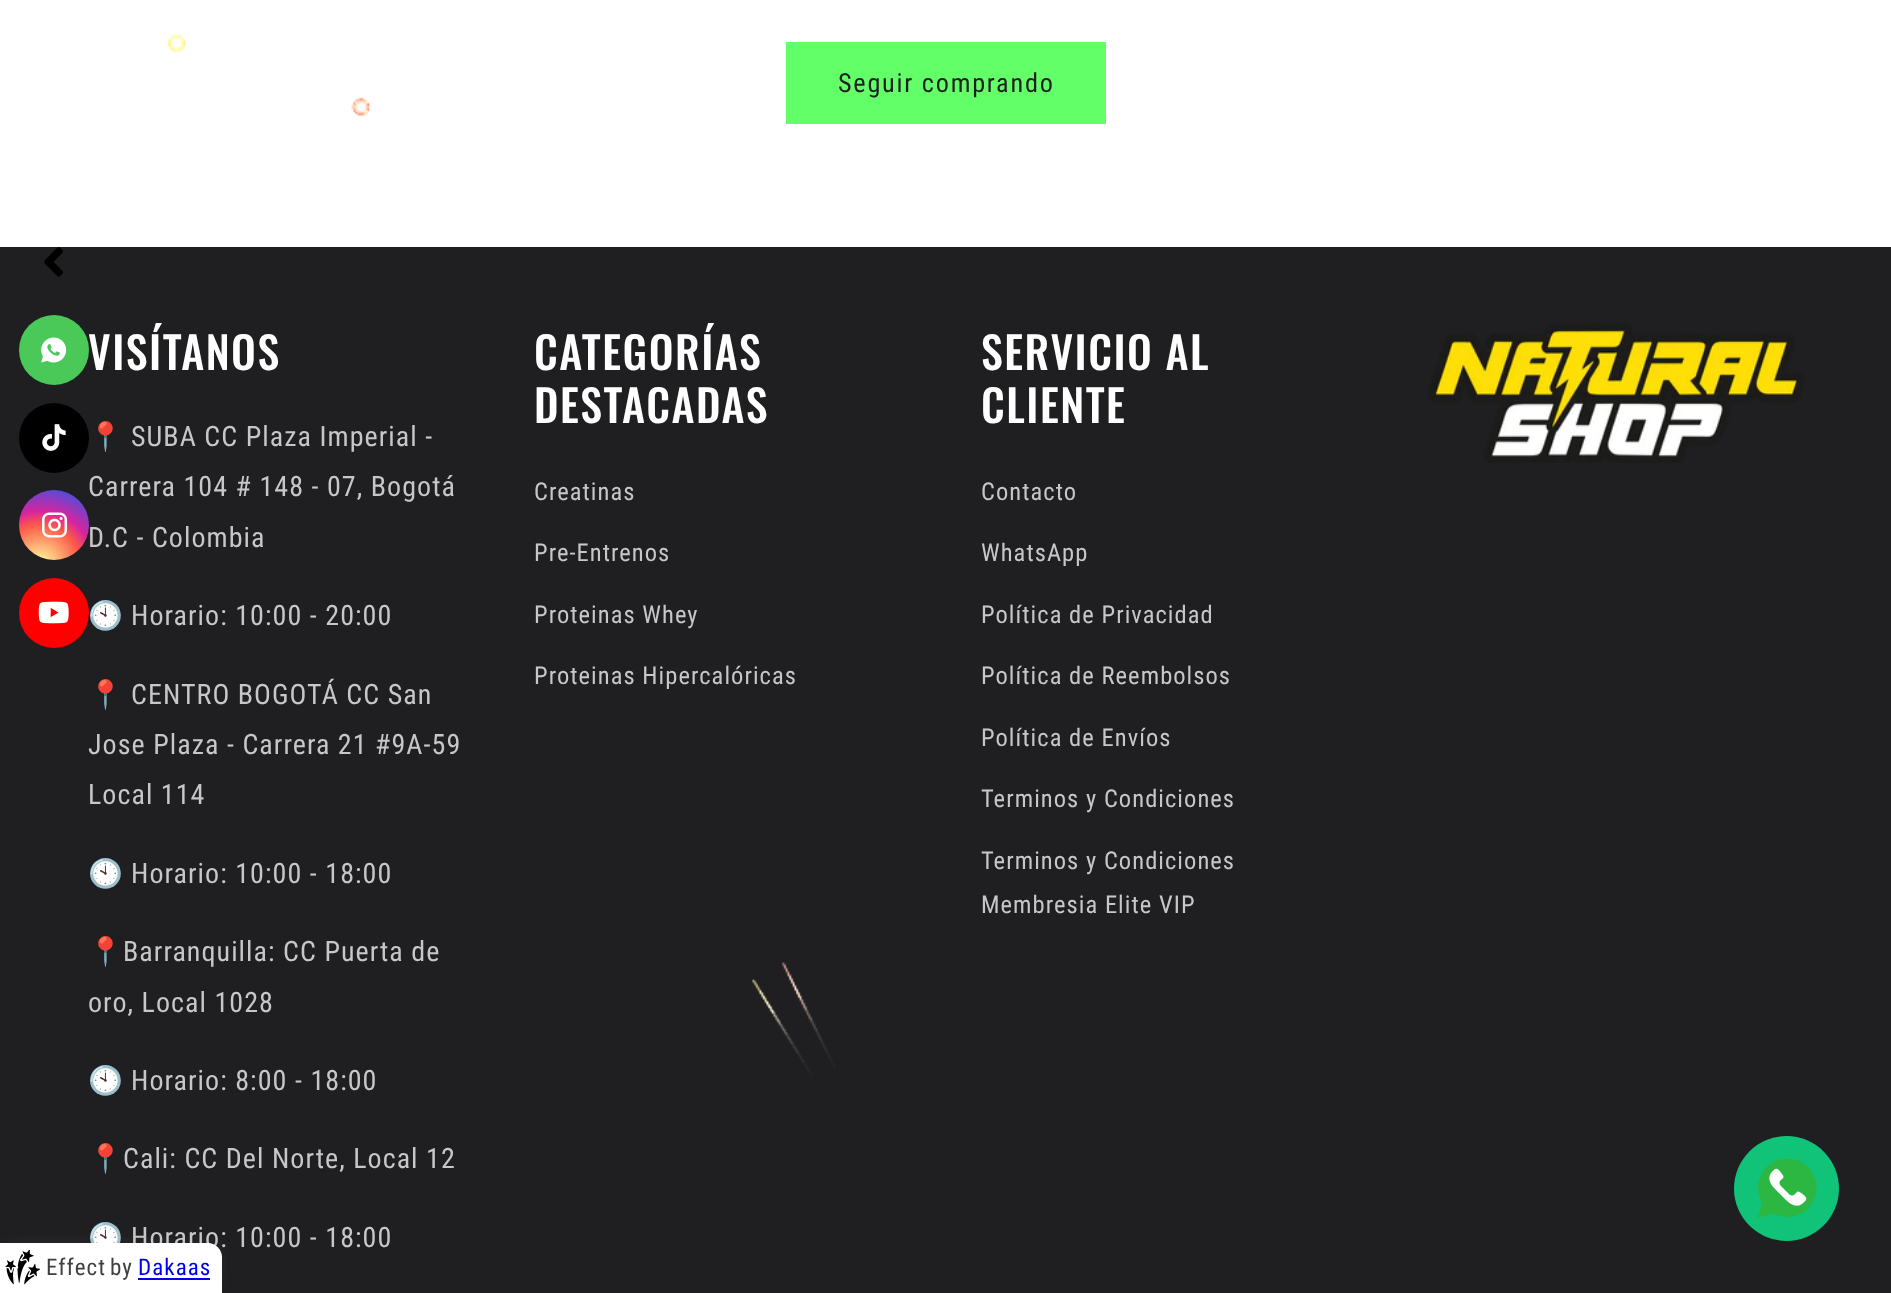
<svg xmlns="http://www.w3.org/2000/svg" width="1891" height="1293">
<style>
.a{font:26.25px Roboto Condensed;letter-spacing:1.75px;fill:#1f1f21}
.b{font:500 44px Oswald;letter-spacing:1.5px;fill:#fff}
.c{font:28px Noto Color Emoji;letter-spacing:1.05px;fill:#c7c7c8}
.d{font:28px Roboto Condensed;letter-spacing:1.05px;fill:#c7c7c8}
.e{font:24.5px Roboto Condensed;letter-spacing:1.05px;fill:#c7c7c8}
.f{font:23px Roboto Condensed;letter-spacing:1.05px;fill:#404040}
.g{font:23px Roboto Condensed;letter-spacing:1.05px;fill:#00e}
</style>
<defs>
<radialGradient id="g1" gradientUnits="userSpaceOnUse" cx="40" cy="565" r="90"><stop offset="0" stop-color="#fdf497"/><stop offset="0.05" stop-color="#fdf497"/><stop offset="0.45" stop-color="#fd5949"/><stop offset="0.6" stop-color="#d6249f"/><stop offset="0.95" stop-color="#285aeb"/></radialGradient>
</defs>
<rect width="100%" height="100%" fill="#fff"/>
<path fill="#63ff69" d="M786 42h320v82H786z"/>
<path fill="#1f1f21" d="M0 247h1891v1046H0z"/>
<image href="2.png" x="44" y="247" width="19" height="30"/>
<circle fill="url(#g1)" cx="54" cy="525" r="35"/>
<image href="5.png" x="42" y="512" width="26" height="26"/>
<image href="7.png" x="1428" y="323" width="376" height="140"/>
<circle fill="#10c379" cx="1786.5" cy="1188.5" r="52.5"/>
<image href="8.png" x="1757" y="1159" width="60" height="59"/>
<rect fill="#403c4329" filter="blur(3.5px)" y="1237" width="226" height="55" rx="16"/>
<text class="a" x="838" y="92">Seguir comprando</text>
<text class="b" x="88" y="370">VISÍTANOS</text>
<circle fill="#4ac959" cx="54" cy="350" r="35"/>
<image href="3.png" x="41" y="337" width="26" height="26"/>
<text class="c" x="88" y="446">📍</text>
<circle fill="#000" cx="54" cy="438" r="35"/>
<image href="4.png" x="42" y="424" width="24" height="27"/>
<text class="d" x="131" y="446">SUBA CC Plaza Imperial -</text>
<text class="d" x="88" y="496">Carrera 104 # 148 - 07, Bogotá</text>
<text class="d" x="88" y="547">D.C - Colombia</text>
<text class="c" x="88" y="625">🕙</text>
<circle fill="#f00" cx="54" cy="613" r="35"/>
<image href="6.png" x="38" y="601" width="31" height="23"/>
<text class="d" x="131" y="625">Horario: 10:00 - 20:00</text>
<text class="c" x="88" y="704">📍</text>
<text class="d" x="131" y="704">CENTRO BOGOTÁ CC San</text>
<text class="d" x="88" y="754">Jose Plaza - Carrera 21 #9A-59</text>
<text class="d" x="88" y="804">Local 114</text>
<text class="c" x="88" y="883">🕙</text>
<text class="d" x="131" y="883">Horario: 10:00 - 18:00</text>
<text class="c" x="88" y="961">📍</text>
<text class="d" x="123" y="961">Barranquilla: CC Puerta de</text>
<text class="d" x="88" y="1012">oro, Local 1028</text>
<text class="c" x="88" y="1090">🕙</text>
<text class="d" x="131" y="1090">Horario: 8:00 - 18:00</text>
<text class="c" x="88" y="1168">📍</text>
<text class="d" x="123" y="1168">Cali: CC Del Norte, Local 12</text>
<text class="c" x="88" y="1247">🕙</text>
<text class="d" x="131" y="1247">Horario: 10:00 - 18:00</text>
<text class="b" x="534" y="370">CATEGORÍAS</text>
<text class="b" x="534" y="423">DESTACADAS</text>
<text class="e" x="534" y="500">Creatinas</text>
<text class="e" x="534" y="561">Pre-Entrenos</text>
<text class="e" x="534" y="623">Proteinas Whey</text>
<text class="e" x="534" y="684">Proteinas Hipercalóricas</text>
<image href="1.png" x="167" y="34" width="669" height="1042"/>
<text class="b" x="981" y="370">SERVICIO AL</text>
<text class="b" x="981" y="423">CLIENTE</text>
<text class="e" x="981" y="500">Contacto</text>
<text class="e" x="981" y="561">WhatsApp</text>
<text class="e" x="981" y="623">Política de Privacidad</text>
<text class="e" x="981" y="684">Política de Reembolsos</text>
<text class="e" x="981" y="746">Política de Envíos</text>
<text class="e" x="981" y="807">Terminos y Condiciones</text>
<text class="e" x="981" y="869">Terminos y Condiciones</text>
<text class="e" x="981" y="913">Membresia Elite VIP</text>
<path fill="#fff" d="M0 1243h208c7.5 0 14 6.5 14 14v36h-222z"/>
<image href="9.png" x="5" y="1250" width="35" height="35"/>
<text class="f" x="46" y="1275">Effect</text>
<text class="f" x="110" y="1275">by</text>
<text class="g" x="138" y="1275">Dakaas</text>
<path fill="#00e" d="M138 1278h72v2H138z"/>
</svg>
